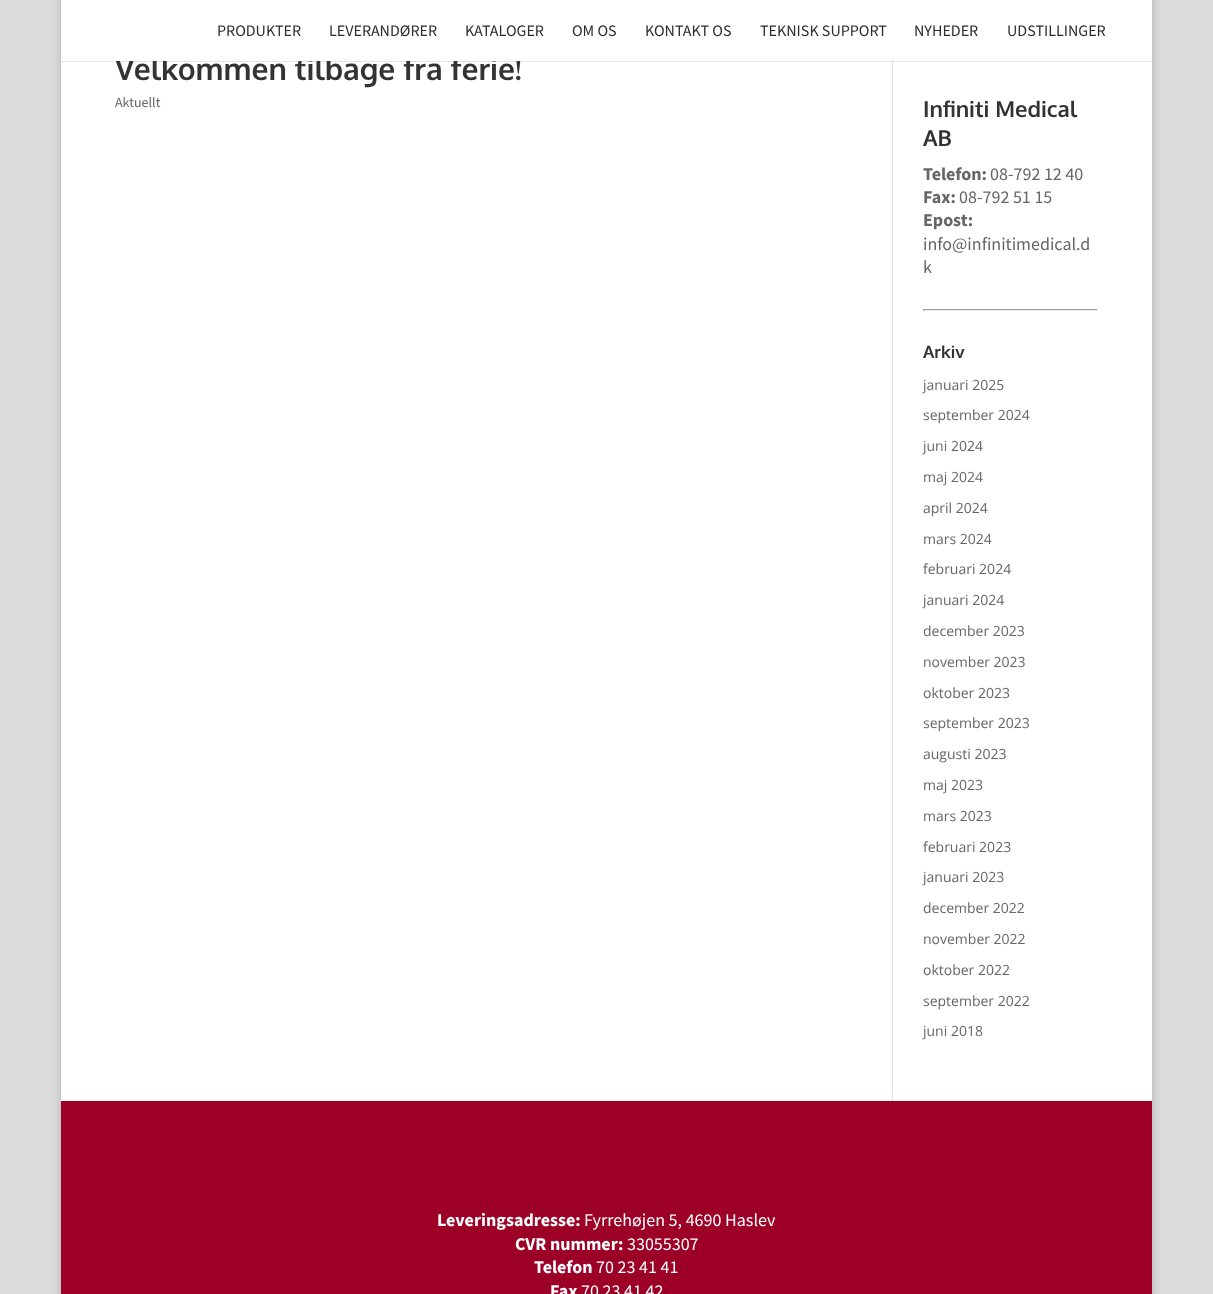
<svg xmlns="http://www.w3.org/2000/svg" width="1213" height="1294">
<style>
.a{font:bold 30px Oxygen;fill:#333}
.b{font:16px Source Sans Pro;fill:#2b2b2b}
.c{font:14px Source Sans Pro;fill:#666}
.d{font:bold 22px Oxygen;fill:#333}
.e{font:bold 18px Source Sans Pro;fill:#666}
.f{font:18px Source Sans Pro;fill:#666}
.g{font:bold 17px Oxygen;fill:#333}
.h{font:14px Open Sans;fill:#666}
.i{font:bold 18px Source Sans Pro;fill:#fff}
.j{font:18px Source Sans Pro;fill:#fff}
</style>
<rect width="100%" height="100%" fill="#dcdcdc"/>
<path fill="#00000033" filter="blur(5px)" d="M61 -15h1091v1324H61z"/>
<path fill="#fff" d="M61 61h1091v1040H61z"/>
<path fill="#e2e2e2" d="M892 61h1v1040H892z"/>
<path fill="#0000001a" d="M61 61h1091v1H61z"/>
<path fill="#9f9f9f" d="M923 309h175v1H923z"/>
<path fill="#eee" d="M1097 309h1v2H1097z"/>
<path fill="#eee" d="M923 310h175v1H923z"/>
<path fill="#9f9f9f" d="M923 309h1v2H923z"/>
<path fill="#9c0026" d="M61 1101h1091v193H61z"/>
<text class="a" x="115" y="80">Velkommen tilbage fra ferie!</text>
<path fill="#fff" d="M61 0h1091v61H61z"/>
<text class="b" x="1007" y="36">UDSTILLINGER</text>
<text class="b" x="914" y="36">NYHEDER</text>
<text class="b" x="760" y="36">TEKNISK SUPPORT</text>
<text class="b" x="645" y="36">KONTAKT OS</text>
<text class="b" x="572" y="36">OM OS</text>
<text class="b" x="465" y="36">KATALOGER</text>
<text class="b" x="329" y="36">LEVERANDØRER</text>
<text class="b" x="217" y="36">PRODUKTER</text>
<text class="c" x="115" y="107">Aktuellt</text>
<text class="d" x="923" y="117">Infiniti Medical</text>
<text class="d" x="923" y="146">AB</text>
<text class="e" x="923" y="180">Telefon:</text>
<text class="f" x="990" y="180">08-792 12 40</text>
<text class="e" x="923" y="203">Fax:</text>
<text class="f" x="959" y="203">08-792 51 15</text>
<text class="e" x="923" y="226">Epost:</text>
<text class="f" x="923" y="250">info@infinitimedical.d</text>
<text class="f" x="923" y="273">k</text>
<text class="g" x="923" y="358">Arkiv</text>
<text class="h" x="923" y="390">januari 2025</text>
<text class="h" x="923" y="420">september 2024</text>
<text class="h" x="923" y="451">juni 2024</text>
<text class="h" x="923" y="482">maj 2024</text>
<text class="h" x="923" y="513">april 2024</text>
<text class="h" x="923" y="544">mars 2024</text>
<text class="h" x="923" y="574">februari 2024</text>
<text class="h" x="923" y="605">januari 2024</text>
<text class="h" x="923" y="636">december 2023</text>
<text class="h" x="923" y="667">november 2023</text>
<text class="h" x="923" y="698">oktober 2023</text>
<text class="h" x="923" y="728">september 2023</text>
<text class="h" x="923" y="759">augusti 2023</text>
<text class="h" x="923" y="790">maj 2023</text>
<text class="h" x="923" y="821">mars 2023</text>
<text class="h" x="923" y="852">februari 2023</text>
<text class="h" x="923" y="882">januari 2023</text>
<text class="h" x="923" y="913">december 2022</text>
<text class="h" x="923" y="944">november 2022</text>
<text class="h" x="923" y="975">oktober 2022</text>
<text class="h" x="923" y="1006">september 2022</text>
<text class="h" x="923" y="1036">juni 2018</text>
<text class="i" x="437" y="1226">Leveringsadresse:</text>
<text class="j" x="584" y="1226">Fyrrehøjen 5, 4690 Haslev</text>
<text class="i" x="515" y="1250">CVR nummer:</text>
<text class="j" x="627" y="1250">33055307</text>
<text class="i" x="534" y="1273">Telefon</text>
<text class="j" x="596" y="1273">70 23 41 41</text>
<text class="i" x="550" y="1297">Fax</text>
<text class="j" x="581" y="1297">70 23 41 42</text>
</svg>
